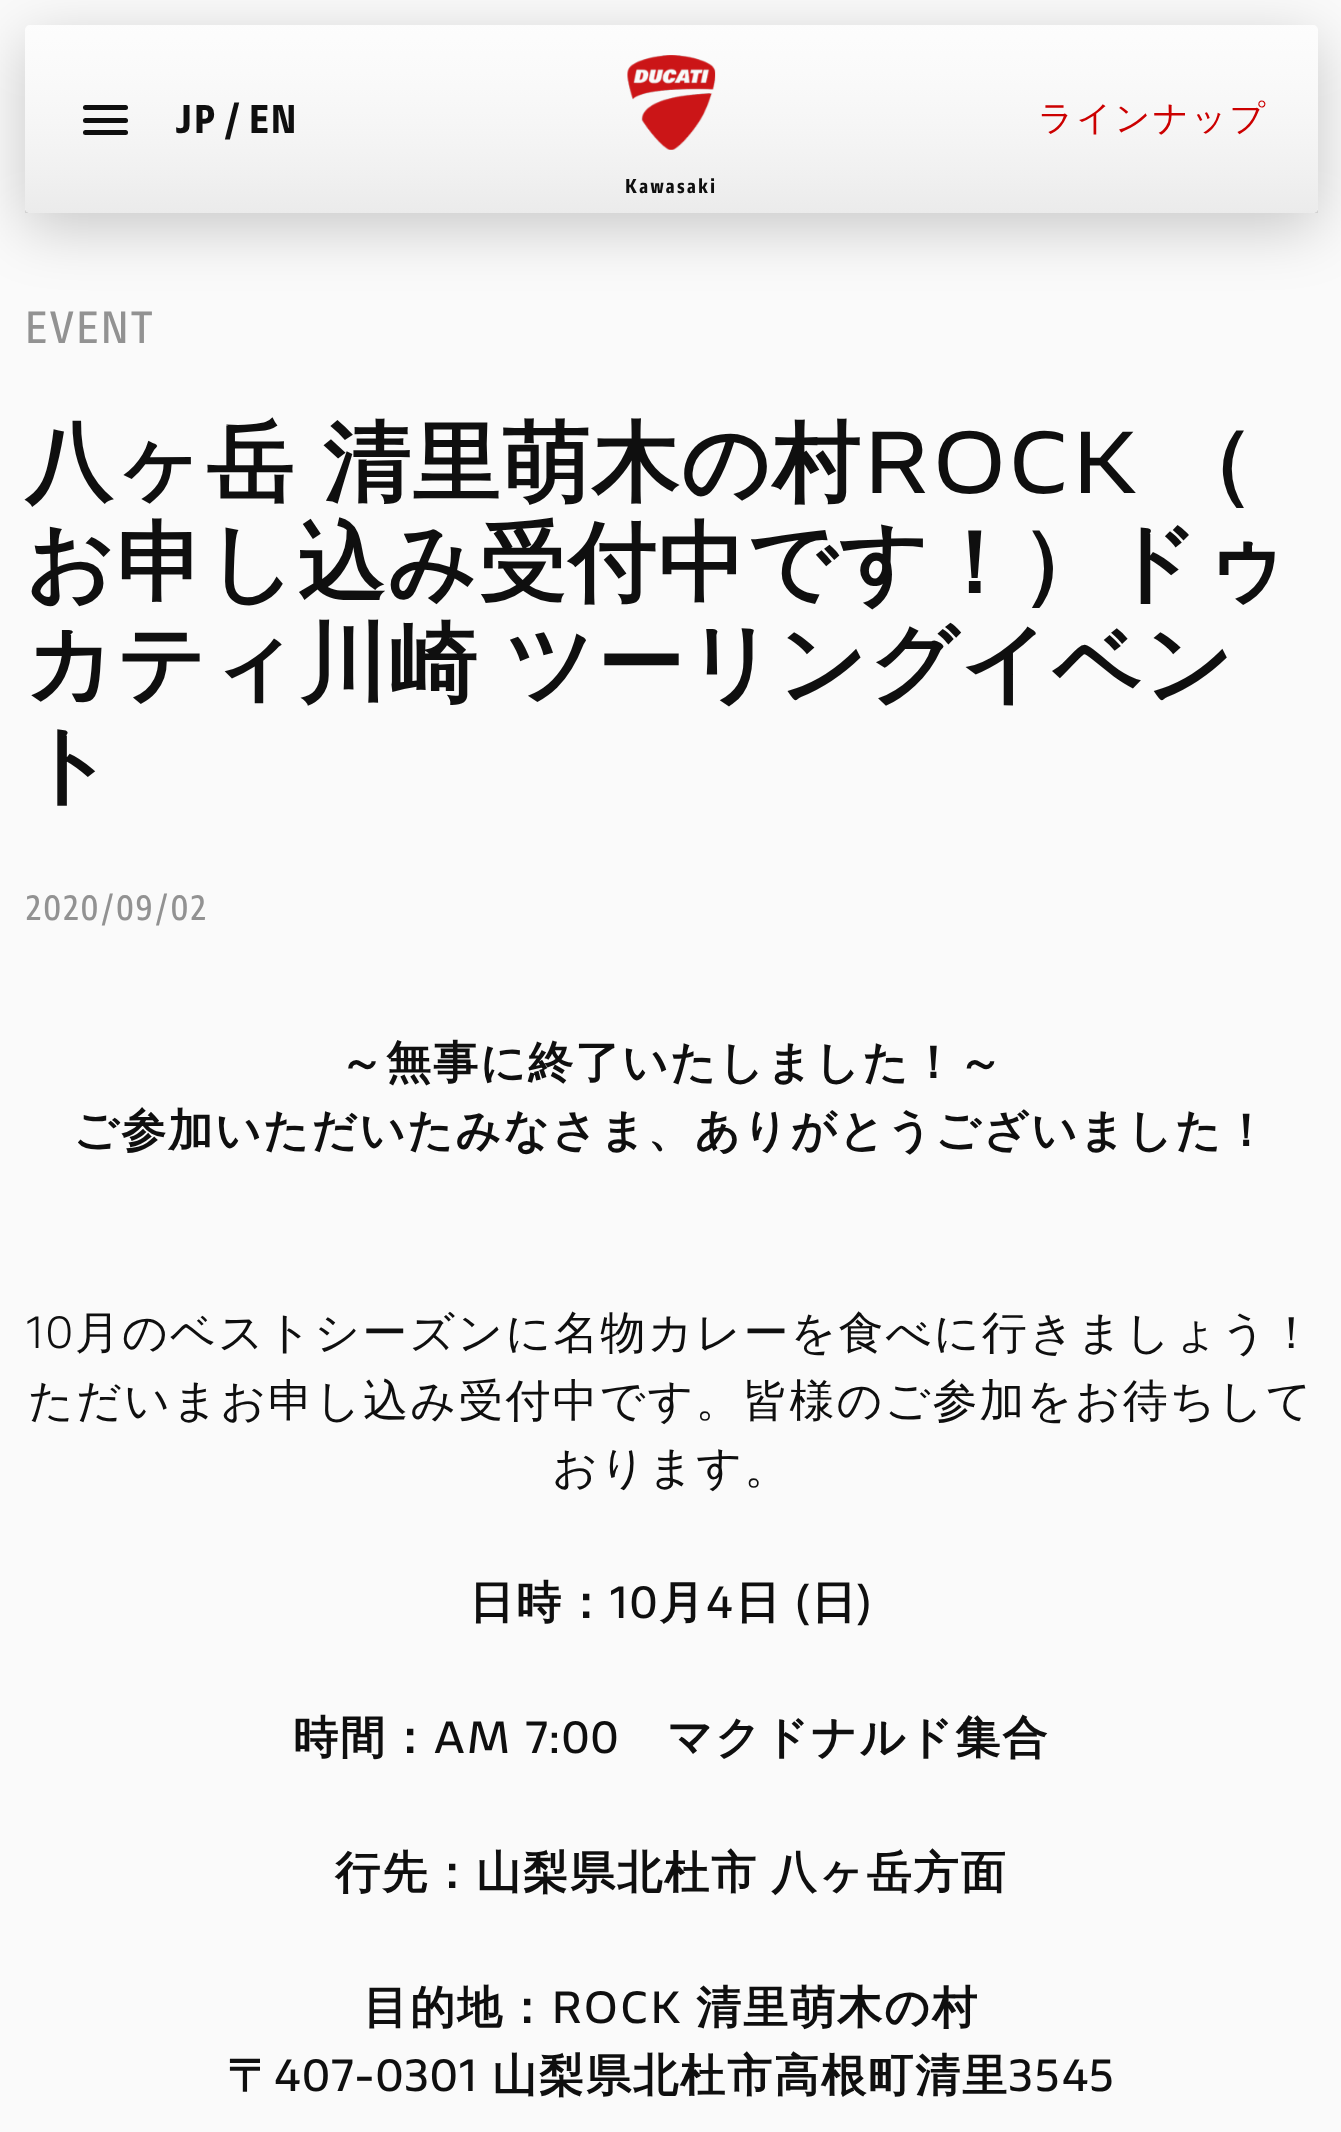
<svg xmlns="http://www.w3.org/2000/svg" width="1341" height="2132">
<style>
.a{font:800 40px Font;letter-spacing:2px;fill:#0f0f0f}
.b{font:500 35px WenQuanYi Zen Hei;letter-spacing:2.5px;fill:#c00}
.c{font:800 20px Font;letter-spacing:2.5px;fill:#0f0f0f}
.d{font:bold 45px 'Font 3';letter-spacing:2.5px;fill:#929292}
.e{font:bold 87.5px WenQuanYi Zen Hei;letter-spacing:2px;fill:#0f0f0f}
.f{font:bold 87.5px 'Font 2';letter-spacing:2px;fill:#0f0f0f}
.g{font:bold 35px 'Font 3';letter-spacing:2.5px;fill:#929292}
.h{font:bold 45px WenQuanYi Zen Hei;letter-spacing:2px;fill:#0f0f0f}
.i{font:45px Font;letter-spacing:2px;fill:#0f0f0f}
.j{font:500 45px WenQuanYi Zen Hei;letter-spacing:2px;fill:#0f0f0f}
.k{font:bold 45px Font;letter-spacing:2px;fill:#0f0f0f}
</style>
<defs>
<linearGradient id="g1" gradientUnits="userSpaceOnUse" x1="671" y1="25" x2="671" y2="213"><stop offset="0" stop-color="#fff" stop-opacity="0.5"/><stop offset="1" stop-color="#ebebeb"/></linearGradient>
</defs>
<rect width="100%" height="100%" fill="#fafafa"/>
<rect fill="#00000033" filter="blur(30px)" x="25" y="40" width="1293" height="188" rx="5"/>
<path fill="#bbbcbc80" d="M25 210h1293v3H25z"/>
<rect fill="#fafafa" x="25" y="25" width="1293" height="188" rx="5"/>
<rect fill="url(#g1)" x="25" y="25" width="1293" height="188" rx="5"/>
<rect fill="#0f0f0f" x="83" y="118" width="45" height="5" rx="2.5"/>
<rect fill="#0f0f0f" x="83" y="105" width="45" height="5" rx="2.5"/>
<rect fill="#0f0f0f" x="83" y="130" width="45" height="5" rx="2.5"/>
<image href="1.png" x="627" y="55" width="89" height="95"/>
<text class="a" x="175" y="133">JP</text>
<text class="a" x="222" y="133">/</text>
<text class="a" x="249" y="133">EN</text>
<text class="b" x="1038" y="130">ラインナップ</text>
<text class="c" x="625" y="193">Kawasaki</text>
<text class="d" x="25" y="343">EVENT</text>
<text class="e" x="25" y="493" word-spacing="-1">八ヶ岳 清里萌木の村</text>
<text class="f" x="862" y="493">ROCK</text>
<text class="e" x="1166" y="493">（</text>
<text class="e" x="25" y="593">お申し込み受付中です！）ドゥ</text>
<text class="e" x="25" y="694" word-spacing="-2">カティ川崎 ツーリングイベン</text>
<text class="e" x="25" y="795">ト</text>
<text class="g" x="25" y="920">2020/09/02</text>
<text class="h" x="339" y="1078">～無事に終了いたしました！～</text>
<text class="h" x="73" y="1146">ご参加いただいたみなさま、ありがとうございました！</text>
<text class="i" x="26" y="1348">10</text>
<text class="j" x="75" y="1348">月のベストシーズンに名物カレーを食べに行きましょう！</text>
<text class="j" x="28" y="1416">ただいまお申し込み受付中です。皆様のご参加をお待ちして</text>
<text class="j" x="552" y="1483">おります。</text>
<text class="h" x="469" y="1618">日時：</text>
<text class="k" x="610" y="1618">10</text>
<text class="h" x="659" y="1618">月</text>
<text class="k" x="706" y="1618">4</text>
<text class="h" x="735" y="1618">日</text>
<text class="k" x="795" y="1618">(</text>
<text class="h" x="811" y="1618">日</text>
<text class="k" x="858" y="1618">)</text>
<text class="h" x="293" y="1753">時間：</text>
<text class="k" x="434" y="1753">AM 7:00</text>
<text class="h" x="667" y="1753">マクドナルド集合</text>
<text class="h" x="335" y="1888" word-spacing="-2">行先：山梨県北杜市 八ヶ岳方面</text>
<text class="h" x="363" y="2023">目的地：</text>
<text class="k" x="551" y="2023">ROCK</text>
<text class="h" x="696" y="2023">清里萌木の村</text>
<text class="h" x="227" y="2091">〒</text>
<text class="k" x="274" y="2091">407-0301</text>
<text class="h" x="492" y="2091">山梨県北杜市高根町清里</text>
<text class="k" x="1009" y="2091">3545</text>
</svg>
